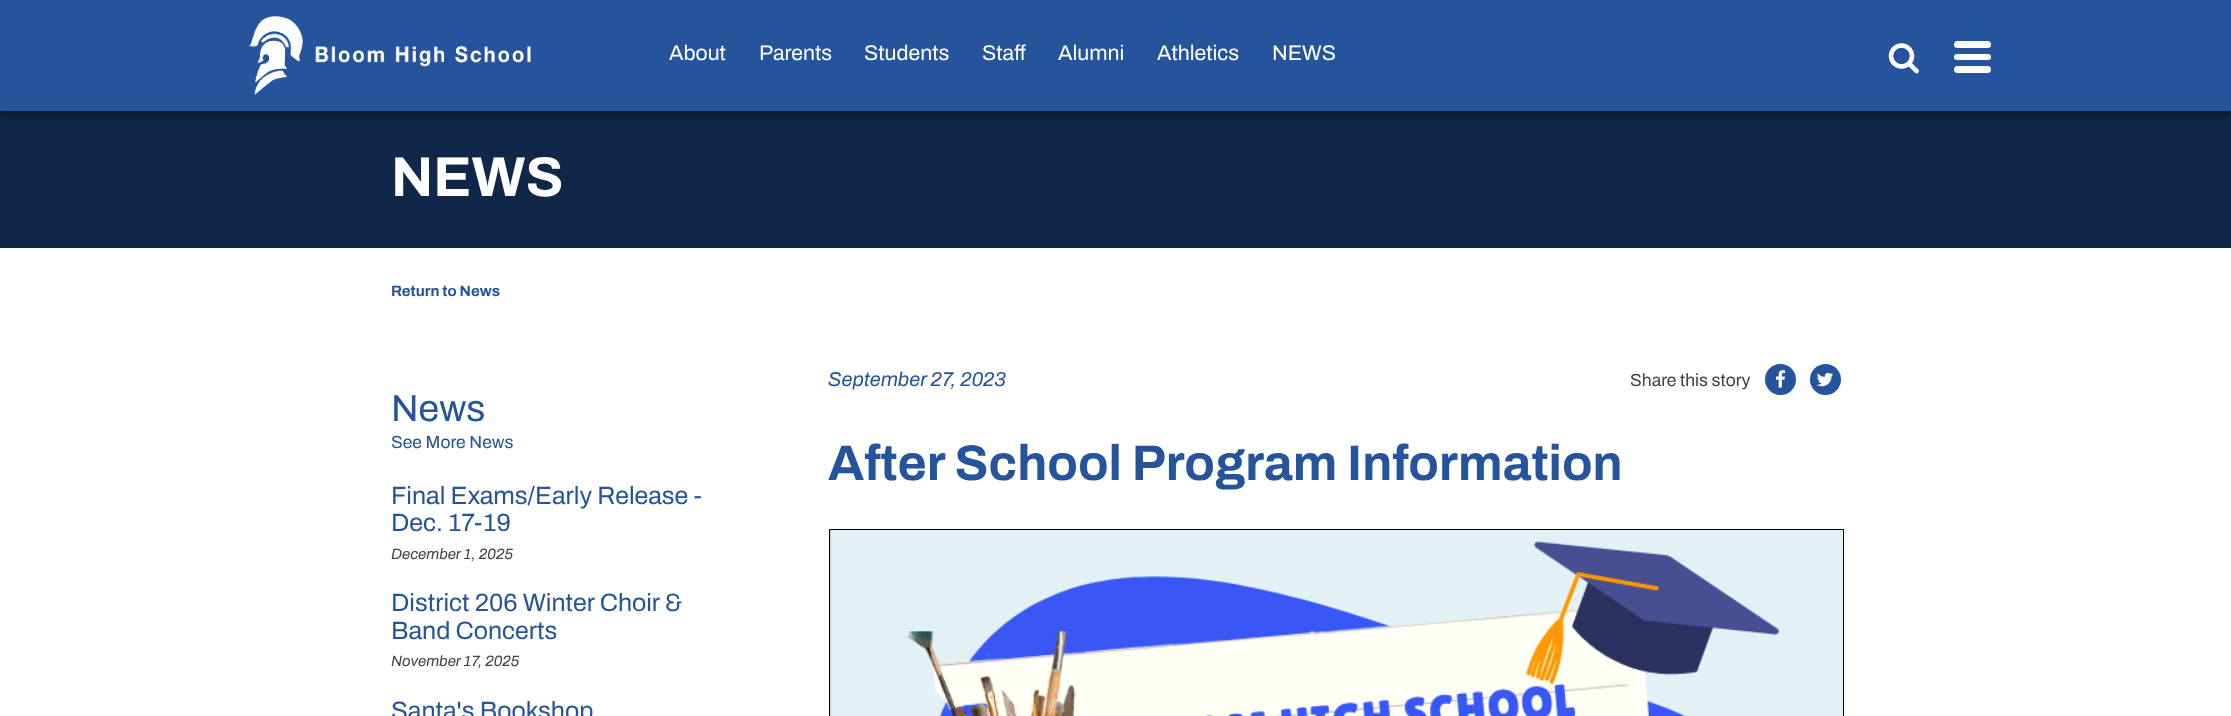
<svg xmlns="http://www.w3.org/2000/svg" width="2231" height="716">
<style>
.a{font:21.25px Archivo;fill:#fff}
.b{font:bold 56px Archivo;fill:#fff}
.c{font:bold 15px Archivo;fill:#25539c}
.d{font:37.5px Archivo;fill:#25539c}
.e{font:17.5px Archivo;fill:#25539c}
.f{font:25px Archivo;fill:#25539c}
.g{font:italic 600 15px Archivo;fill:#414042}
.h{font:italic 600 20px Archivo;fill:#25539c}
.i{font:17.5px Archivo;fill:#414042}
.j{font:bold 50px Archivo;fill:#25539c}
</style>
<defs>
<clipPath id="clip1"><path d="M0 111h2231v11H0z"/></clipPath>
</defs>
<rect width="100%" height="100%" fill="#25539c"/>
<path fill="#11274a" d="M0 111h2231v137H0z"/>
<g clip-path="url(#clip1)">
<path fill="#0000004d" filter="blur(3px)" d="M0 6h2231v112H0z"/>
</g>
<image href="1.png" x="249" y="16" width="282" height="85"/>
<image href="2.png" x="1888" y="43" width="31" height="31"/>
<rect fill="#fff" x="1954" y="41" width="37" height="7" rx="3.5"/>
<rect fill="#fff" x="1954" y="54" width="37" height="6" rx="3"/>
<rect fill="#fff" x="1954" y="66" width="37" height="7" rx="3.5"/>
<path fill="#fff" d="M0 248h2231v468H0z"/>
<circle fill="#25539c" cx="1780.5" cy="379.5" r="15.5"/>
<image href="3.png" x="1776" y="370" width="10" height="18"/>
<circle fill="#25539c" cx="1825.5" cy="379.5" r="15.5"/>
<image href="4.png" x="1816" y="372" width="17" height="15"/>
<path fill="#d3d3d3" d="M830 530h2v186H830z"/>
<path fill="none" stroke="#000" d="M829.5 529.5h1014v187H829.5z"/>
<image href="5.png" x="831" y="530" width="1012" height="186"/>
<text class="a" x="669" y="60">About</text>
<text class="a" x="759" y="60">Parents</text>
<text class="a" x="864" y="60">Students</text>
<text class="a" x="982" y="60">Staff</text>
<text class="a" x="1058" y="60">Alumni</text>
<text class="a" x="1157" y="60">Athletics</text>
<text class="a" x="1272" y="60">NEWS</text>
<text class="b" x="391" y="196">NEWS</text>
<text class="c" x="391" y="296">Return to News</text>
<text class="d" x="391" y="421">News</text>
<text class="e" x="391" y="448">See More News</text>
<text class="f" x="391" y="504">Final Exams/Early Release -</text>
<text class="f" x="391" y="531">Dec. 17-19</text>
<text class="g" x="391" y="559">December 1, 2025</text>
<text class="f" x="391" y="611">District 206 Winter Choir &amp;</text>
<text class="f" x="391" y="639">Band Concerts</text>
<text class="g" x="391" y="666">November 17, 2025</text>
<text class="f" x="391" y="719">Santa's Bookshop</text>
<text class="h" x="828" y="386">September 27, 2023</text>
<text class="i" x="1630" y="386">Share this story</text>
<text class="j" x="828" y="480">After School Program Information</text>
</svg>
